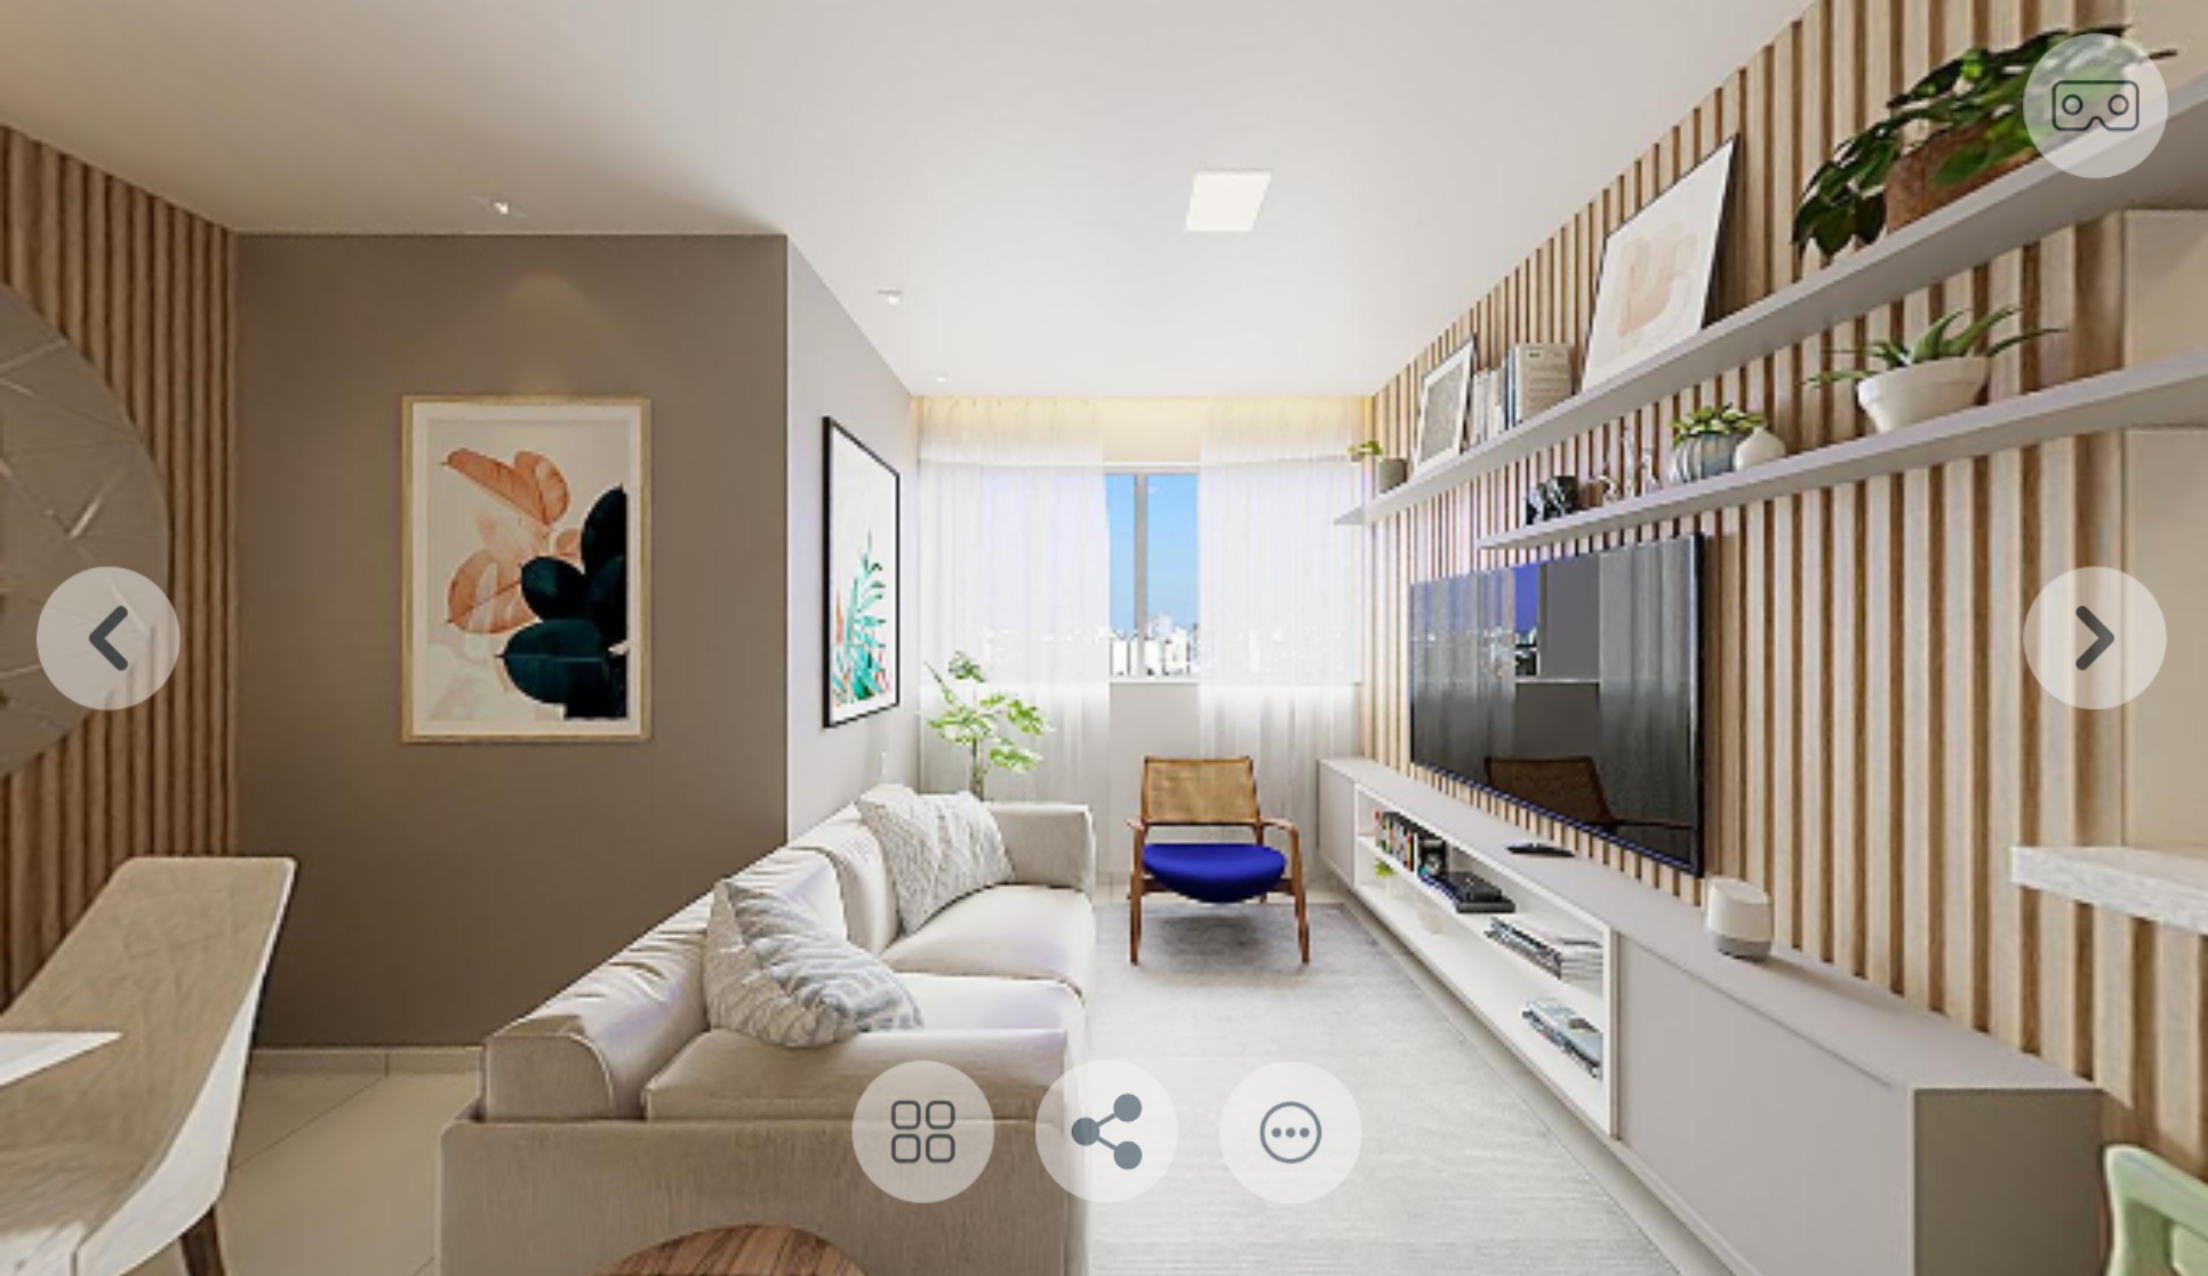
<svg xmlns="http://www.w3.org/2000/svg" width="2208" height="1276">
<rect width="100%" height="100%" fill="#fff"/>
<image href="1.png" x="0" y="0" width="2208" height="1276"/>
<image href="2.png" x="2023" y="32" width="146" height="148"/>
<image href="3.png" x="36" y="565" width="145" height="147"/>
<image href="4.png" x="2023" y="565" width="145" height="145"/>
<image href="5.png" x="851" y="1059" width="145" height="145"/>
<image href="6.png" x="1034" y="1060" width="145" height="143"/>
<image href="7.png" x="1219" y="1061" width="144" height="143"/>
</svg>
